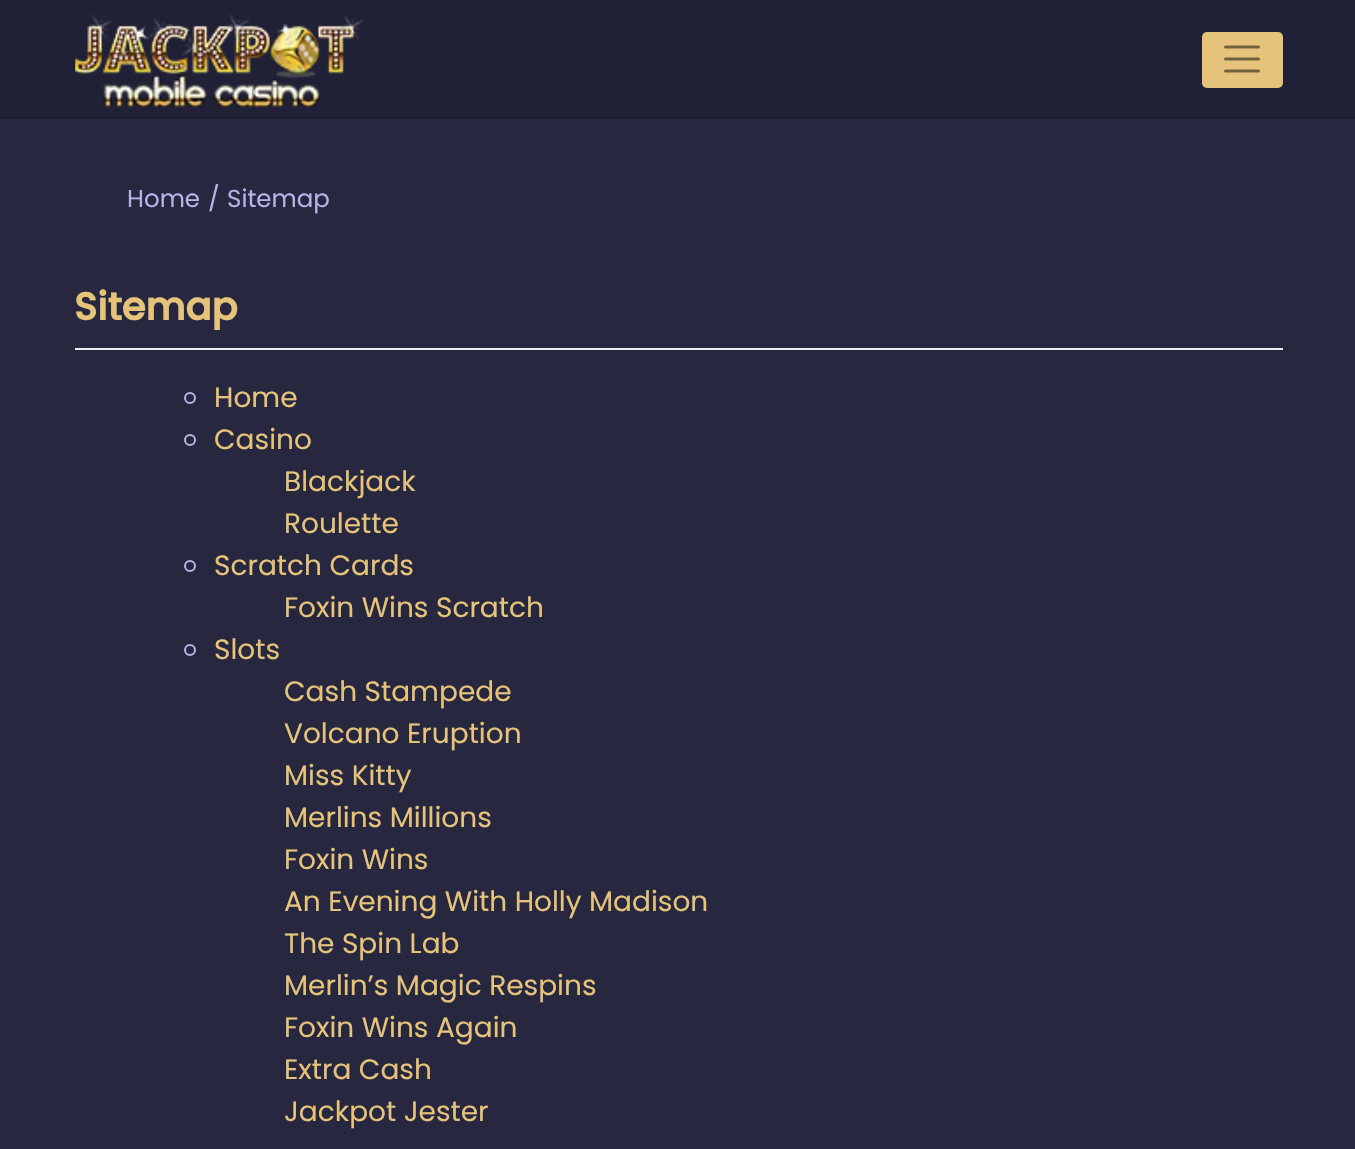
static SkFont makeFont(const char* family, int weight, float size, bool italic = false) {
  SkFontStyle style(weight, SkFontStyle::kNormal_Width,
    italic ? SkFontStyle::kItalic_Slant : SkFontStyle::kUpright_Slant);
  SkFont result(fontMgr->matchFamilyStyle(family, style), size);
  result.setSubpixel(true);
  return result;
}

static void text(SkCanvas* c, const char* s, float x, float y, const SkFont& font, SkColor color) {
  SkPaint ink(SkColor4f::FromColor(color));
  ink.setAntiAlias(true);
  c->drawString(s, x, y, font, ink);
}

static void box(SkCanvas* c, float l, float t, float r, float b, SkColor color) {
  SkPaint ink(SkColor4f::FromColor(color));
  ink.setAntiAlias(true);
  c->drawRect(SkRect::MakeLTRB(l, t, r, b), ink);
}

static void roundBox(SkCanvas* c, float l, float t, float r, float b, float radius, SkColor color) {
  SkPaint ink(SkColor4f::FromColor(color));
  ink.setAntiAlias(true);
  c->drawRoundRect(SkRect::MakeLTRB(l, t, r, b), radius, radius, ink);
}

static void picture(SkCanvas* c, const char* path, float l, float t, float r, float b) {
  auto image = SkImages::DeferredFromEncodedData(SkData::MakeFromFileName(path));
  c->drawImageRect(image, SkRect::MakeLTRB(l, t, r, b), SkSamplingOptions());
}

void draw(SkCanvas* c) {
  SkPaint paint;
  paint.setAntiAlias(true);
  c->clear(0xff27273f);
  box(c, 0, 0, 1355, 117, 0xff202136);
  box(c, 0, 117, 1355, 119, 0xff1d1e31);
  picture(c, "img_01.png", 75, 14, 364, 107);
  roundBox(c, 1202, 32, 1283, 88, 5, 0xffe5c37b);
  paint.setStyle(SkPaint::kStroke_Style);
  paint.setStrokeWidth(3);
  paint.setStrokeCap(SkPaint::kRound_Cap);
  paint.setColor(0xff73623e);
  c->drawPath(SkPathBuilder().moveTo(1225.5f, 47).lineTo(1258.5f, 47).moveTo(1225.5f, 59).lineTo(1258.5f, 59).moveTo(1225.5f, 71).lineTo(1258.5f, 71).detach(), paint);
  SkFont face1 = makeFont("Poppins", 400, 24.5f);
  text(c, "Home", 127, 207, face1, 0xffb4b4e6);
  text(c, "/", 208, 207, face1, 0xffb4b4e6);
  text(c, "Sitemap", 227, 207, face1, 0xffb4b4e6);
  box(c, 75, 348, 1283, 350, 0xffeaecef);
  SkFont face2 = makeFont("Poppins", 700, 38.5f);
  text(c, "Sitemap", 74, 320, face2, 0xffe5c37b);
  paint.setStrokeWidth(2);
  paint.setStrokeCap(SkPaint::kButt_Cap);
  paint.setColor(0xffb4b4e6);
  c->drawCircle(190, 398, 5, paint);
  SkFont face3 = makeFont("Poppins", 400, 28);
  text(c, "Home", 214, 407, face3, 0xffe5c37b);
  c->drawCircle(190, 440, 5, paint);
  text(c, "Casino", 214, 449, face3, 0xffe5c37b);
  text(c, "Blackjack", 284, 491, face3, 0xffe5c37b);
  text(c, "Roulette", 284, 533, face3, 0xffe5c37b);
  c->drawCircle(190, 566, 5, paint);
  text(c, "Scratch Cards", 214, 575, face3, 0xffe5c37b);
  text(c, "Foxin Wins Scratch", 284, 617, face3, 0xffe5c37b);
  c->drawCircle(190, 650, 5, paint);
  text(c, "Slots", 214, 659, face3, 0xffe5c37b);
  text(c, "Cash Stampede", 284, 701, face3, 0xffe5c37b);
  text(c, "Volcano Eruption", 284, 743, face3, 0xffe5c37b);
  text(c, "Miss Kitty", 284, 785, face3, 0xffe5c37b);
  text(c, "Merlins Millions", 284, 827, face3, 0xffe5c37b);
  text(c, "Foxin Wins", 284, 869, face3, 0xffe5c37b);
  text(c, "An Evening With Holly Madison", 284, 911, face3, 0xffe5c37b);
  text(c, "The Spin Lab", 284, 953, face3, 0xffe5c37b);
  text(c, "Merlin’s Magic Respins", 284, 995, face3, 0xffe5c37b);
  text(c, "Foxin Wins Again", 284, 1037, face3, 0xffe5c37b);
  text(c, "Extra Cash", 284, 1079, face3, 0xffe5c37b);
  text(c, "Jackpot Jester", 284, 1121, face3, 0xffe5c37b);
}
